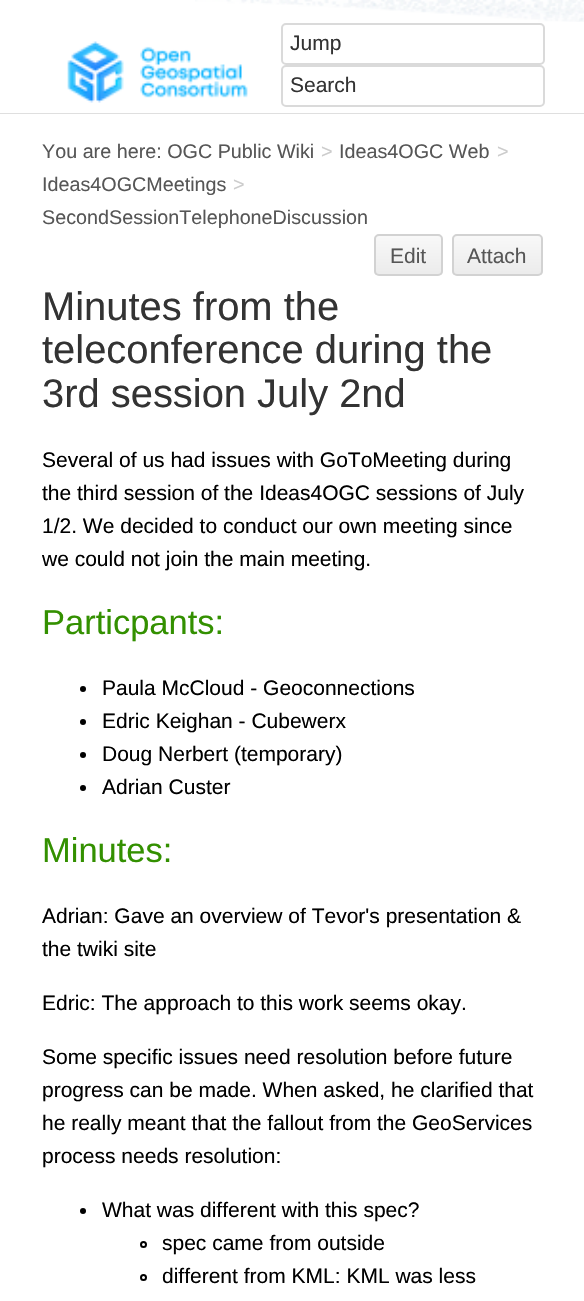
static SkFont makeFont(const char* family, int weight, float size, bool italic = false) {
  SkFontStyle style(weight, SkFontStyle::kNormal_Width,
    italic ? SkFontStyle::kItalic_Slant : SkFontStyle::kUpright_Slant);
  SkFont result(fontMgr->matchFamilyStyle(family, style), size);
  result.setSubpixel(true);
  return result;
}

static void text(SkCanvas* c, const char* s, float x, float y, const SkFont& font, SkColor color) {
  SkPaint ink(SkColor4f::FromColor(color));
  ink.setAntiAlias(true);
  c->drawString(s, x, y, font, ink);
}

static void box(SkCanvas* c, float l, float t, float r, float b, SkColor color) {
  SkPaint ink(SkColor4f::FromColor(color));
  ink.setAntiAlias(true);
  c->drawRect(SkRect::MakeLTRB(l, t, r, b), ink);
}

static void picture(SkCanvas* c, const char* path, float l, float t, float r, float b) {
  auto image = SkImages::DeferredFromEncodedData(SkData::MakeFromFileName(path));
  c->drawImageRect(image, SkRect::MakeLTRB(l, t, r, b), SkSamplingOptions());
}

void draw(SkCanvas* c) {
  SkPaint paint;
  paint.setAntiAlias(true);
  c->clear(0xffdfdfdf);
  box(c, 0, 0, 584, 113, 0xffffffff);
  picture(c, "img_01.png", 195, 0, 584, 22);
  picture(c, "img_02.png", 67, 41, 248, 103);
  paint.setStyle(SkPaint::kStroke_Style);
  paint.setStrokeWidth(2);
  paint.setColor(0xffdadada);
  c->drawRoundRect(SkRect::MakeLTRB(282, 24, 544, 64), 4, 4, paint);
  SkFont face1 = makeFont("Liberation Sans", 400, 21);
  text(c, "Jump", 290, 50, face1, 0xff333333);
  c->drawRoundRect(SkRect::MakeLTRB(282, 66, 544, 106), 4, 4, paint);
  text(c, "Search", 290, 92, face1, 0xff333333);
  box(c, 0, 114, 584, 1301, 0xffffffff);
  SkFont face2 = makeFont("Liberation Sans", 400, 19.75f);
  text(c, "You are here: OGC Public Wiki", 42, 158, face2, 0xff565656);
  text(c, ">", 321, 158, face2, 0xffcccccc);
  text(c, "Ideas4OGC Web", 339, 158, face2, 0xff565656);
  text(c, ">", 497, 158, face2, 0xffcccccc);
  text(c, "Ideas4OGCMeetings", 42, 191, face2, 0xff565656);
  text(c, ">", 233, 191, face2, 0xffcccccc);
  text(c, "SecondSessionTelephoneDiscussion", 42, 224, face2, 0xff565656);
  c->save();
  c->clipPath(SkPathBuilder().moveTo(379, 234).lineTo(438, 234).cubicTo(441, 234, 443, 236, 443, 239).lineTo(443, 271).cubicTo(443, 274, 441, 276, 438, 276).lineTo(379, 276).cubicTo(376, 276, 374, 274, 374, 271).lineTo(374, 239).cubicTo(374, 236, 376, 234, 379, 234).close().detach(), true);
  paint.setStyle(SkPaint::kFill_Style);
  {
    const SkColor colors[] = {0xfff8f8f8, 0xffebebeb};
    const float stops[] = {0, 1};
    const SkPoint ends[] = {{408, 236}, {408, 275}};
    paint.setShader(SkGradientShader::MakeLinear(ends, colors, stops, 2, SkTileMode::kClamp));
    paint.setAlpha(255);
  }
  c->drawRect(SkRect::MakeLTRB(374, 236, 443, 275), paint);
  c->restore();
  paint.setStyle(SkPaint::kStroke_Style);
  paint.setShader(nullptr);
  paint.setColor(0xffd2d2d2);
  c->drawRoundRect(SkRect::MakeLTRB(375, 235, 442, 275), 4, 4, paint);
  text(c, "Edit", 390, 263, face1, 0xff565656);
  c->save();
  c->clipPath(SkPathBuilder().moveTo(457, 234).lineTo(538, 234).cubicTo(541, 234, 543, 236, 543, 239).lineTo(543, 271).cubicTo(543, 274, 541, 276, 538, 276).lineTo(457, 276).cubicTo(454, 276, 452, 274, 452, 271).lineTo(452, 239).cubicTo(452, 236, 454, 234, 457, 234).close().detach(), true);
  paint.setStyle(SkPaint::kFill_Style);
  {
    const SkColor colors[] = {0xfff8f8f8, 0xffebebeb};
    const float stops[] = {0, 1};
    const SkPoint ends[] = {{497, 236}, {497, 275}};
    paint.setShader(SkGradientShader::MakeLinear(ends, colors, stops, 2, SkTileMode::kClamp));
    paint.setAlpha(255);
  }
  c->drawRect(SkRect::MakeLTRB(452, 236, 543, 275), paint);
  c->restore();
  paint.setStyle(SkPaint::kStroke_Style);
  paint.setShader(nullptr);
  paint.setColor(0xffd2d2d2);
  c->drawRoundRect(SkRect::MakeLTRB(453, 235, 542, 275), 4, 4, paint);
  text(c, "Attach", 467, 263, face1, 0xff565656);
  SkFont face3 = makeFont("Liberation Sans", 400, 39.9f);
  text(c, "Minutes from the", 42, 320, face3, 0xff333333);
  text(c, "teleconference during the", 42, 363, face3, 0xff333333);
  text(c, "3rd session July 2nd", 42, 407, face3, 0xff333333);
  text(c, "Several of us had issues with GoToMeeting during", 42, 467, face1, 0xff000000);
  text(c, "the third session of the Ideas4OGC sessions of July", 42, 500, face1, 0xff000000);
  text(c, "1/2. We decided to conduct our own meeting since", 42, 533, face1, 0xff000000);
  text(c, "we could not join the main meeting.", 42, 566, face1, 0xff000000);
  SkFont face4 = makeFont("Liberation Sans", 400, 34.5f);
  text(c, "Particpants:", 42, 634, face4, 0xff339000);
  paint.setStyle(SkPaint::kFill_Style);
  paint.setColor(0xff000000);
  c->drawCircle(83, 689, 3, paint);
  text(c, "Paula McCloud - Geoconnections", 102, 695, face1, 0xff000000);
  c->drawCircle(83, 722, 3, paint);
  text(c, "Edric Keighan - Cubewerx", 102, 728, face1, 0xff000000);
  c->drawCircle(83, 755, 3, paint);
  text(c, "Doug Nerbert (temporary)", 102, 761, face1, 0xff000000);
  c->drawCircle(83, 788, 3, paint);
  text(c, "Adrian Custer", 102, 794, face1, 0xff000000);
  text(c, "Minutes:", 42, 862, face4, 0xff339000);
  text(c, "Adrian: Gave an overview of Tevor's presentation &", 42, 923, face1, 0xff000000);
  text(c, "the twiki site", 42, 956, face1, 0xff000000);
  text(c, "Edric: The approach to this work seems okay.", 42, 1010, face1, 0xff000000);
  text(c, "Some specific issues need resolution before future", 42, 1064, face1, 0xff000000);
  text(c, "progress can be made. When asked, he clarified that", 42, 1097, face1, 0xff000000);
  text(c, "he really meant that the fallout from the GeoServices", 42, 1130, face1, 0xff000000);
  text(c, "process needs resolution:", 42, 1163, face1, 0xff000000);
  c->drawCircle(83, 1211, 3, paint);
  text(c, "What was different with this spec?", 102, 1217, face1, 0xff000000);
  paint.setStyle(SkPaint::kStroke_Style);
  c->drawCircle(143.5f, 1244.5f, 2.5f, paint);
  text(c, "spec came from outside", 162, 1250, face1, 0xff000000);
  c->drawCircle(143.5f, 1277.5f, 2.5f, paint);
  text(c, "different from KML: KML was less", 162, 1283, face1, 0xff000000);
}
